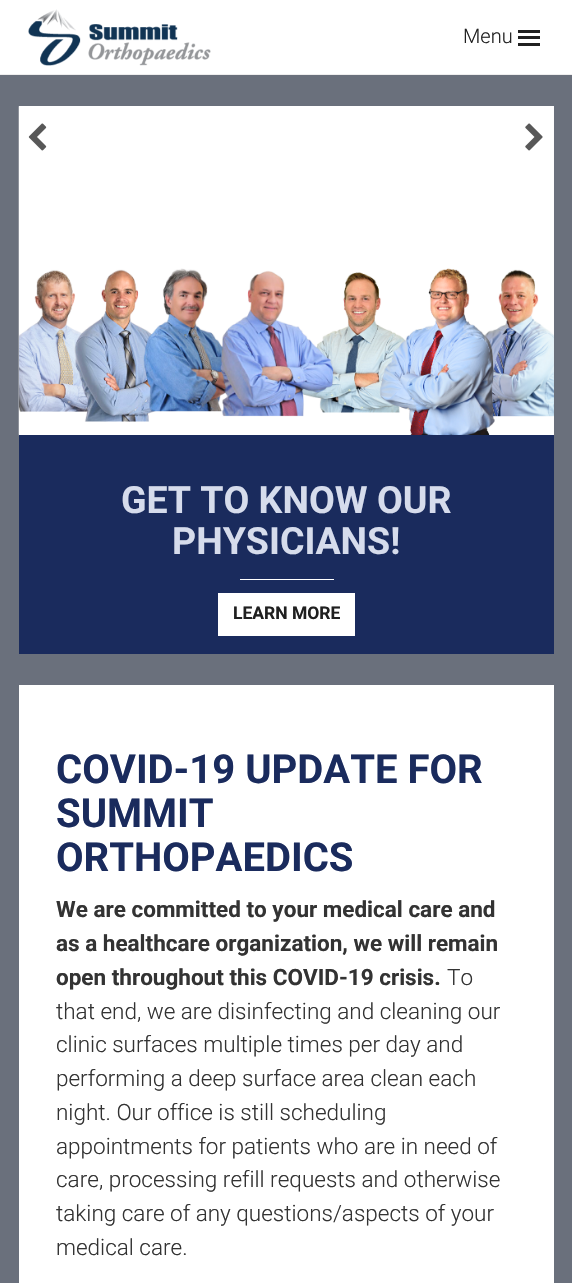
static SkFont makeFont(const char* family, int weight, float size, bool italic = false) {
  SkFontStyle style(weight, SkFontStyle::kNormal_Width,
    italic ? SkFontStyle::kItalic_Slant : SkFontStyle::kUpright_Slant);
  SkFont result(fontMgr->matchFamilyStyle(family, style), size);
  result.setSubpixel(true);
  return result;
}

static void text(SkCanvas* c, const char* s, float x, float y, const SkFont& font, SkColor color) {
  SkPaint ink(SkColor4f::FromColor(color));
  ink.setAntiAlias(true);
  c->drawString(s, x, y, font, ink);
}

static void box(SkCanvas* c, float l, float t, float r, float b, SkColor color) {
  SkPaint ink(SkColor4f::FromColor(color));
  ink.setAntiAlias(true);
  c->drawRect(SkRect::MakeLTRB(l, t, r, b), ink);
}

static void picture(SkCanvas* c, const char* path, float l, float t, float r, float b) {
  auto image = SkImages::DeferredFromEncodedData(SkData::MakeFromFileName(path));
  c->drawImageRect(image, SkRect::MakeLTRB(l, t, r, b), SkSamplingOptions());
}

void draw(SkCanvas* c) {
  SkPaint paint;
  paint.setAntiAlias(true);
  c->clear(0xff6a707c);
  box(c, 0, 0, 572, 74, 0xffffffff);
  box(c, 0, 74, 572, 75, 0xffeeeeee);
  picture(c, "img_01.png", 28, 9, 211, 66);
  SkFont face1 = makeFont("Roboto", 300, 20);
  text(c, "Menu", 463, 43, face1, 0xff202020);
  box(c, 518, 36, 540, 39, 0xff202020);
  box(c, 518, 30, 540, 33, 0xff202020);
  box(c, 518, 43, 540, 46, 0xff202020);
  picture(c, "img_04.png", 18, 106, 554, 436);
  picture(c, "img_05.png", 19, 106, 554, 435);
  picture(c, "img_02.png", 28, 123, 47, 151);
  picture(c, "img_03.png", 525, 123, 543, 151);
  box(c, 19, 435, 554, 654, 0xff1a2b5d);
  SkFont face2 = makeFont("Roboto", 700, 37.5f);
  text(c, "GET TO KNOW OUR", 121, 513, face2, 0xffd6dcec);
  text(c, "PHYSICIANS!", 172, 554, face2, 0xffd6dcec);
  box(c, 240, 579, 334, 580, 0xffffffff);
  box(c, 218, 593, 355, 636, 0xffffffff);
  SkFont face3 = makeFont("Roboto", 700, 17.5f);
  text(c, "LEARN MORE", 233, 619, face3, 0xff202020);
  box(c, 19, 685, 554, 1283, 0xffffffff);
  SkFont face4 = makeFont("Roboto", 700, 40);
  text(c, "COVID-19 UPDATE FOR", 56, 783, face4, 0xff1a2b5d);
  text(c, "SUMMIT", 56, 827, face4, 0xff1a2b5d);
  text(c, "ORTHOPAEDICS", 56, 871, face4, 0xff1a2b5d);
  SkFont face5 = makeFont("Roboto", 700, 22.5f);
  text(c, "We are committed to your medical care and", 56, 917, face5, 0xff333333);
  text(c, "as a healthcare organization, we will remain", 56, 951, face5, 0xff333333);
  text(c, "open throughout this COVID-19 crisis.", 56, 985, face5, 0xff333333);
  SkFont face6 = makeFont("Roboto", 300, 22.5f);
  text(c, "To", 447, 985, face6, 0xff333333);
  text(c, "that end, we are disinfecting and cleaning our", 56, 1019, face6, 0xff333333);
  text(c, "clinic surfaces multiple times per day and", 56, 1052, face6, 0xff333333);
  text(c, "performing a deep surface area clean each", 56, 1086, face6, 0xff333333);
  text(c, "night. Our office is still scheduling", 56, 1120, face6, 0xff333333);
  text(c, "appointments for patients who are in need of", 56, 1154, face6, 0xff333333);
  text(c, "care, processing refill requests and otherwise", 56, 1187, face6, 0xff333333);
  text(c, "taking care of any questions/aspects of your", 56, 1221, face6, 0xff333333);
  text(c, "medical care.", 56, 1255, face6, 0xff333333);
}
